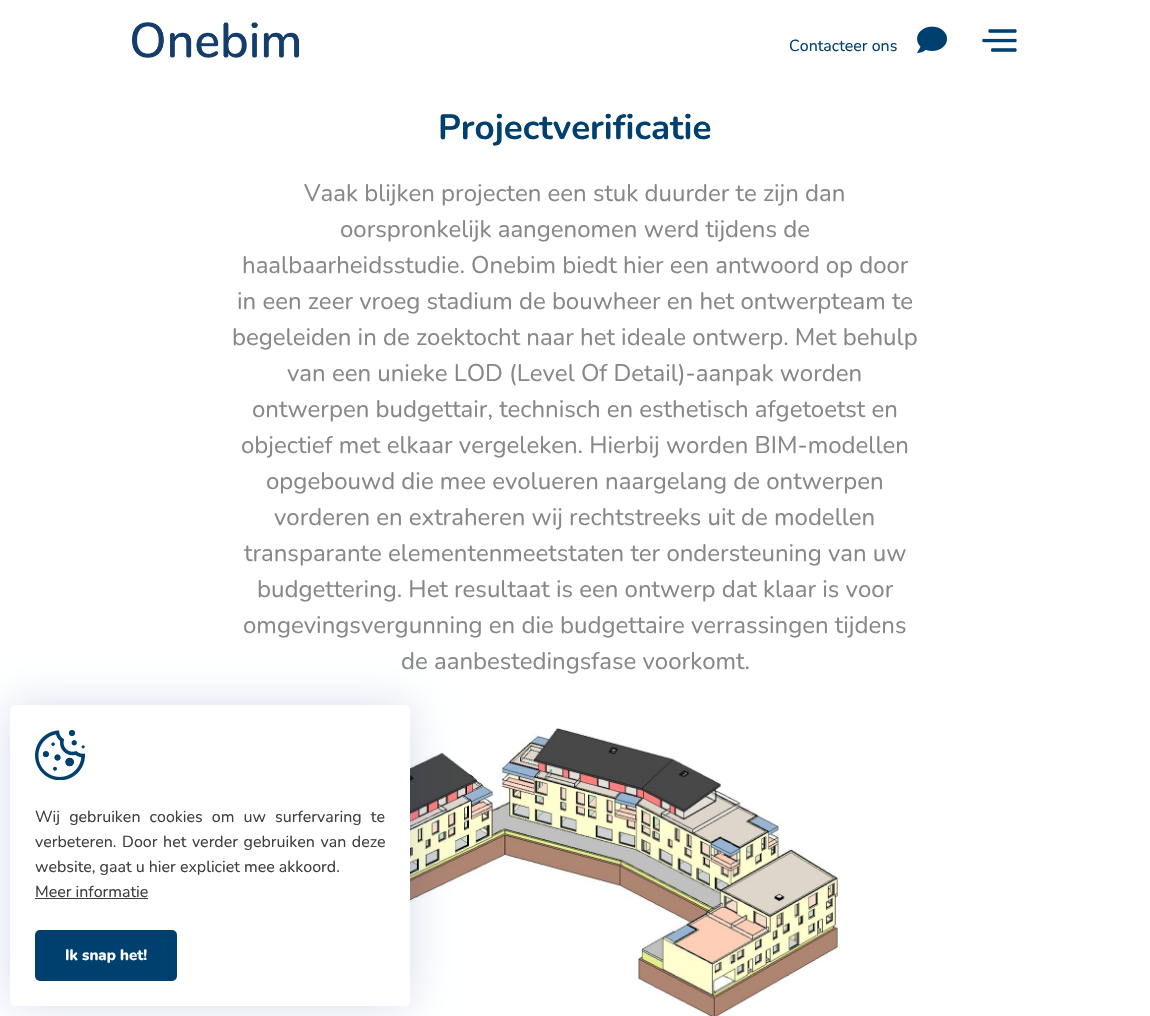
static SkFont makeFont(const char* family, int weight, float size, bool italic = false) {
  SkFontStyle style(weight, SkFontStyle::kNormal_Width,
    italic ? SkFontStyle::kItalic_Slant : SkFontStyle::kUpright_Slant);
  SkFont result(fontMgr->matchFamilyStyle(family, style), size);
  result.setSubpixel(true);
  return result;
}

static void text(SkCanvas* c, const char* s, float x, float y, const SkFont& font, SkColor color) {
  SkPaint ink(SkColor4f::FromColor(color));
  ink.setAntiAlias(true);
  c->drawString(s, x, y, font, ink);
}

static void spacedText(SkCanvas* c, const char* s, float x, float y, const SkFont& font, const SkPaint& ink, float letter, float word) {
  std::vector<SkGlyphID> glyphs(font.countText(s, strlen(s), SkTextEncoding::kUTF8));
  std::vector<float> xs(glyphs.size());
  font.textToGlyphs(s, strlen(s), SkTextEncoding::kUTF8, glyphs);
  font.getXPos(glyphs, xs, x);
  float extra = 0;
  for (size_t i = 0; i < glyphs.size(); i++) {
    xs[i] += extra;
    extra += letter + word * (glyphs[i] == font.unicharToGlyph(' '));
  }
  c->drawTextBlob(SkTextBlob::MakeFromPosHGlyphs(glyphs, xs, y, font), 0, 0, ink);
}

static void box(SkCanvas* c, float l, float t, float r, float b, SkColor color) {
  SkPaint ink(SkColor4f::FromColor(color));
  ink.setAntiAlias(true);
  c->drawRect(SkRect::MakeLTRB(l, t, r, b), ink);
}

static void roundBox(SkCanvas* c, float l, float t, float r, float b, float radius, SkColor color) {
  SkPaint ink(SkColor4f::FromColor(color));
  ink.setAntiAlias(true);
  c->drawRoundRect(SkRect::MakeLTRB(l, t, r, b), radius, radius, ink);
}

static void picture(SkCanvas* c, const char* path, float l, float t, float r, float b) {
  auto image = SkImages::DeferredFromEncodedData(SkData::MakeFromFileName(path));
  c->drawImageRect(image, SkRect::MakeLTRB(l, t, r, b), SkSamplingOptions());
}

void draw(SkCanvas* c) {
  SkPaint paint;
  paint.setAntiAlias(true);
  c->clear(0xffffffff);
  picture(c, "img_01.png", 132, 22, 300, 58);
  SkFont face1 = makeFont("Nunito", 400, 16);
  text(c, "Contacteer ons", 789, 51, face1, 0xff00406f);
  picture(c, "img_02.png", 917, 26, 948, 53);
  picture(c, "img_03.png", 982, 29, 1017, 52);
  SkFont face2 = makeFont("Nunito", 700, 35);
  text(c, "Projectverificatie", 438, 139, face2, 0xff00406f);
  SkFont face3 = makeFont("Nunito", 400, 24);
  text(c, "Vaak blijken projecten een stuk duurder te zijn dan", 304, 201, face3, 0xff878787);
  text(c, "oorspronkelijk aangenomen werd tijdens de", 340, 237, face3, 0xff878787);
  text(c, "haalbaarheidsstudie. Onebim biedt hier een antwoord op door", 242, 273, face3, 0xff878787);
  text(c, "in een zeer vroeg stadium de bouwheer en het ontwerpteam te", 237, 309, face3, 0xff878787);
  text(c, "begeleiden in de zoektocht naar het ideale ontwerp. Met behulp", 232, 345, face3, 0xff878787);
  text(c, "van een unieke LOD (Level Of Detail)-aanpak worden", 287, 381, face3, 0xff878787);
  text(c, "ontwerpen budgettair, technisch en esthetisch afgetoetst en", 252, 417, face3, 0xff878787);
  text(c, "objectief met elkaar vergeleken. Hierbij worden BIM-modellen", 241, 453, face3, 0xff878787);
  text(c, "opgebouwd die mee evolueren naargelang de ontwerpen", 266, 489, face3, 0xff878787);
  text(c, "vorderen en extraheren wij rechtstreeks uit de modellen", 274, 525, face3, 0xff878787);
  text(c, "transparante elementenmeetstaten ter ondersteuning van uw", 244, 561, face3, 0xff878787);
  text(c, "budgettering. Het resultaat is een ontwerp dat klaar is voor", 257, 597, face3, 0xff878787);
  text(c, "omgevingsvergunning en die budgettaire verrassingen tijdens", 243, 633, face3, 0xff878787);
  text(c, "de aanbestedingsfase voorkomt.", 401, 669, face3, 0xff878787);
  picture(c, "img_04.png", 310, 728, 838, 1016);
  paint.setColor(0x26001d93);
  paint.setMaskFilter(SkMaskFilter::MakeBlur(kNormal_SkBlurStyle, 22.5f));
  c->drawRoundRect(SkRect::MakeLTRB(10, 705, 410, 1006), 5, 5, paint);
  paint.setMaskFilter(nullptr);
  roundBox(c, 10, 705, 410, 1006, 5, 0xffffffff);
  picture(c, "img_05.png", 35, 730, 85, 780);
  paint.setColor(0xff3e3e3e);
  spacedText(c, "Wij gebruiken cookies om uw surfervaring te", 35, 822, face1, paint, 0, 5);
  spacedText(c, "verbeteren. Door het verder gebruiken van deze", 35, 847, face1, paint, 0, 1.5f);
  text(c, "website, gaat u hier expliciet mee akkoord.", 35, 872, face1, 0xff3e3e3e);
  text(c, "Meer informatie", 35, 897, face1, 0xff3e3e3e);
  box(c, 35, 898, 148, 899, 0xff3e3e3e);
  roundBox(c, 35, 930, 177, 981, 5, 0xff00406f);
  SkFont face4 = makeFont("Nunito", 800, 15);
  text(c, "Ik snap het!", 65, 960, face4, 0xffffffff);
}
